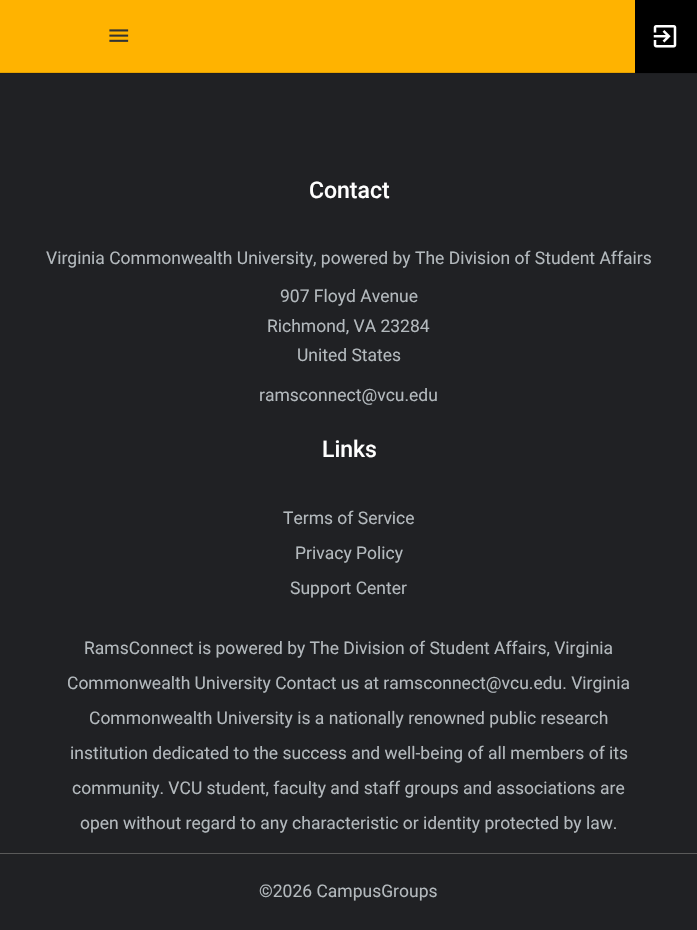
static SkFont makeFont(const char* family, int weight, float size, bool italic = false) {
  SkFontStyle style(weight, SkFontStyle::kNormal_Width,
    italic ? SkFontStyle::kItalic_Slant : SkFontStyle::kUpright_Slant);
  SkFont result(fontMgr->matchFamilyStyle(family, style), size);
  result.setSubpixel(true);
  return result;
}

static void text(SkCanvas* c, const char* s, float x, float y, const SkFont& font, SkColor color) {
  SkPaint ink(SkColor4f::FromColor(color));
  ink.setAntiAlias(true);
  c->drawString(s, x, y, font, ink);
}

static void box(SkCanvas* c, float l, float t, float r, float b, SkColor color) {
  SkPaint ink(SkColor4f::FromColor(color));
  ink.setAntiAlias(true);
  c->drawRect(SkRect::MakeLTRB(l, t, r, b), ink);
}

static void picture(SkCanvas* c, const char* path, float l, float t, float r, float b) {
  auto image = SkImages::DeferredFromEncodedData(SkData::MakeFromFileName(path));
  c->drawImageRect(image, SkRect::MakeLTRB(l, t, r, b), SkSamplingOptions());
}

void draw(SkCanvas* c) {
  SkPaint paint;
  paint.setAntiAlias(true);
  c->clear(0xff202124);
  box(c, 0, 0, 635, 73, 0xffffb300);
  paint.setColor(0x1a000000);
  c->drawPath(SkPathBuilder().moveTo(0, 72).lineTo(0, 74).lineTo(88, 74).lineTo(88, 1).lineTo(88, 72).close().detach(), paint);
  c->drawPath(SkPathBuilder().moveTo(88, 72).lineTo(88, 74).lineTo(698, 74).lineTo(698, 1).lineTo(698, 72).close().detach(), paint);
  picture(c, "img_01.png", 109, 29, 129, 42);
  box(c, 635, 0, 697, 73, 0xff000000);
  picture(c, "img_02.png", 653, 25, 677, 48);
  SkFont face1 = makeFont("Roboto", 500, 23);
  text(c, "Contact", 309, 198, face1, 0xffffffff);
  SkFont face2 = makeFont("Roboto", 400, 17.5f);
  text(c, "Virginia Commonwealth University, powered by The Division of Student Affairs", 46, 264, face2, 0xffb3b9bd);
  text(c, "907 Floyd Avenue", 280, 302, face2, 0xffb3b9bd);
  text(c, "Richmond, VA 23284", 267, 332, face2, 0xffb3b9bd);
  text(c, "United States", 297, 361, face2, 0xffb3b9bd);
  text(c, "ramsconnect@vcu.edu", 259, 401, face2, 0xffb3b9bd);
  text(c, "Links", 322, 457, face1, 0xffffffff);
  text(c, "Terms of Service", 283, 524, face2, 0xffb3b9bd);
  text(c, "Privacy Policy", 295, 559, face2, 0xffb3b9bd);
  text(c, "Support Center", 290, 594, face2, 0xffb3b9bd);
  text(c, "RamsConnect is powered by The Division of Student Affairs, Virginia", 84, 654, face2, 0xffb3b9bd);
  text(c, "Commonwealth University Contact us at ramsconnect@vcu.edu. Virginia", 67, 689, face2, 0xffb3b9bd);
  text(c, "Commonwealth University is a nationally renowned public research", 89, 724, face2, 0xffb3b9bd);
  text(c, "institution dedicated to the success and well-being of all members of its", 70, 759, face2, 0xffb3b9bd);
  text(c, "community. VCU student, faculty and staff groups and associations are", 72, 794, face2, 0xffb3b9bd);
  text(c, "open without regard to any characteristic or identity protected by law.", 80, 829, face2, 0xffb3b9bd);
  box(c, 0, 853, 697, 854, 0xff5a5a5a);
  text(c, "©2026 CampusGroups", 259, 897, face2, 0xffb3b9bd);
}
